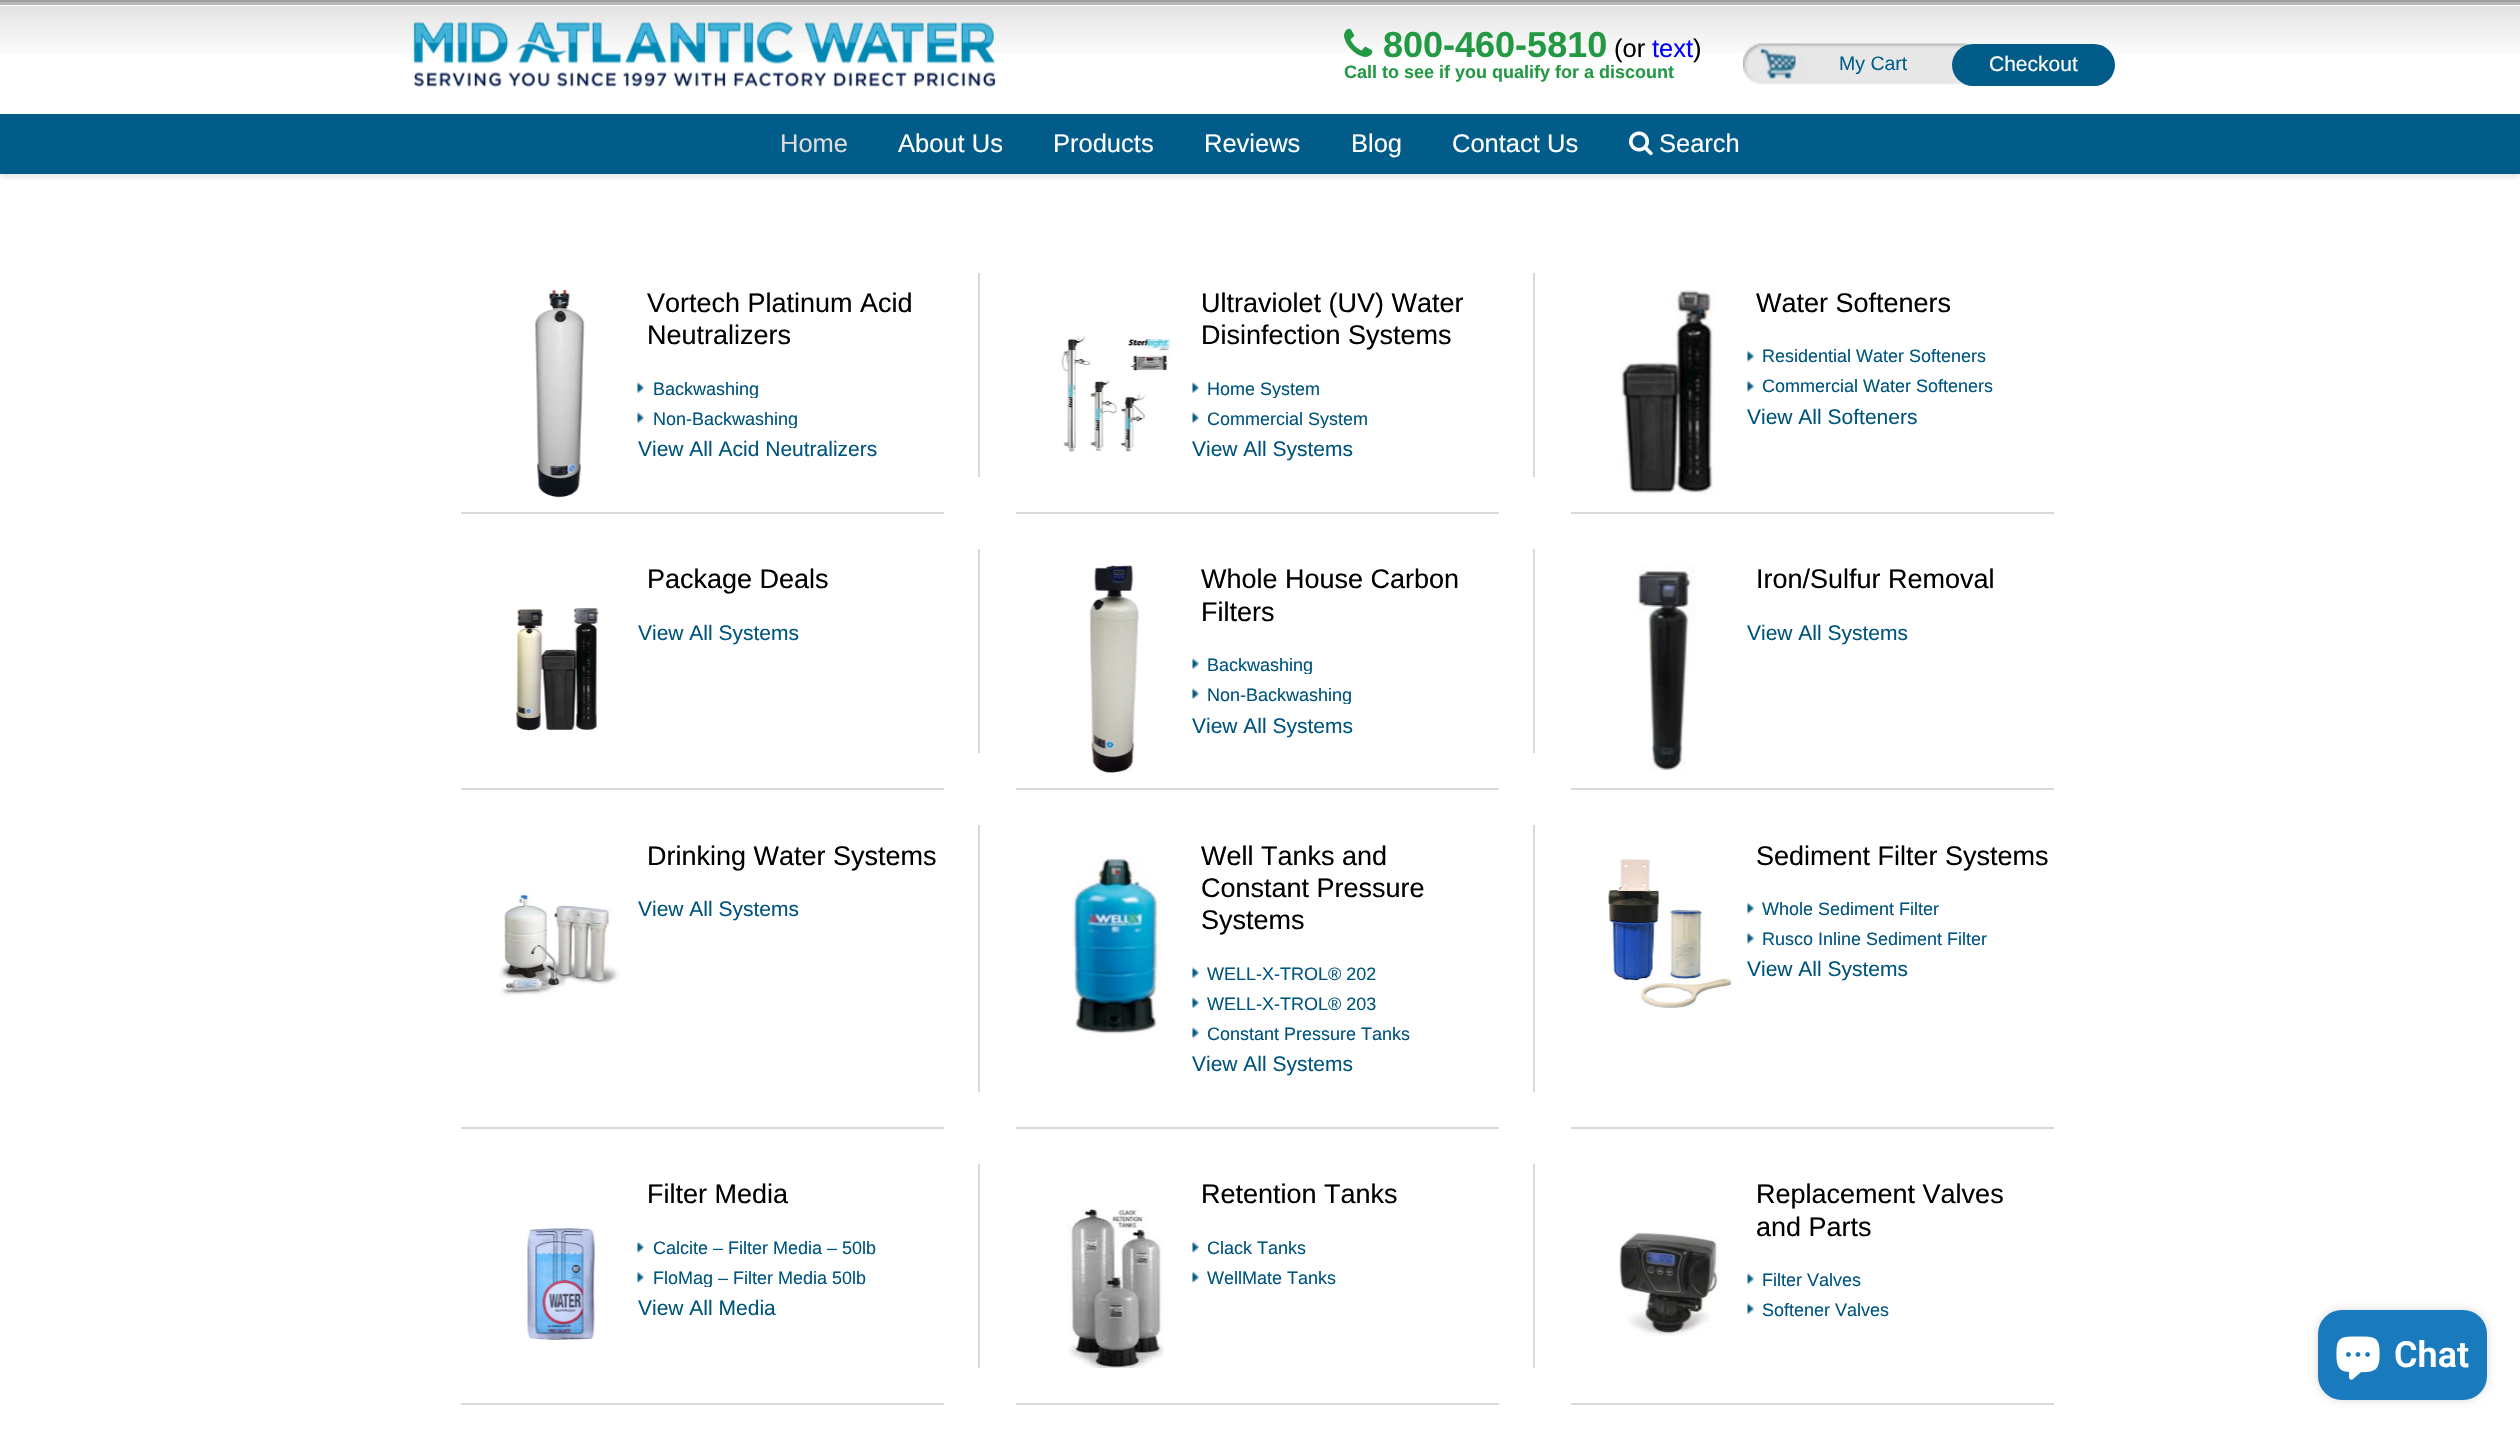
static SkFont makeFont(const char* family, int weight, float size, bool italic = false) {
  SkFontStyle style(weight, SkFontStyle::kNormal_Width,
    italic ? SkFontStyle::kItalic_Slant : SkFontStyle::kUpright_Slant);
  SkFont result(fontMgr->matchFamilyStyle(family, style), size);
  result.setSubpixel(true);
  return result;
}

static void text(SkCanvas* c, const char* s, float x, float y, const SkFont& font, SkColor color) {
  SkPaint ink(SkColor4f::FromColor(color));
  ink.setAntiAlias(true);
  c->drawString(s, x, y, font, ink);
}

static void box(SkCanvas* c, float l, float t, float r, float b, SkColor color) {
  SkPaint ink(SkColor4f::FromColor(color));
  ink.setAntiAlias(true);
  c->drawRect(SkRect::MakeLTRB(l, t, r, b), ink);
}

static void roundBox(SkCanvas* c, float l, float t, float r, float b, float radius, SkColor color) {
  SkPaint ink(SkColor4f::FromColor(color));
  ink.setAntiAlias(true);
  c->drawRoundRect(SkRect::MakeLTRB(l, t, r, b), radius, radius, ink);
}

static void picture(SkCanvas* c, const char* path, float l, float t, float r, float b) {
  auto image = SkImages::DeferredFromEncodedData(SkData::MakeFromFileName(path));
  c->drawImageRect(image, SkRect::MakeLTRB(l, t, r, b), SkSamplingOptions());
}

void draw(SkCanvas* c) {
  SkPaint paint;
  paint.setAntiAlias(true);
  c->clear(0xffffffff);
  c->save();
  c->clipRect(SkRect::MakeLTRB(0, 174, 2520, 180));
  paint.setColor(0x1a000000);
  paint.setMaskFilter(SkMaskFilter::MakeBlur(kNormal_SkBlurStyle, 3));
  c->drawRect(SkRect::MakeLTRB(0, 3, 2520, 177), paint);
  paint.setMaskFilter(nullptr);
  c->restore();
  box(c, 0, 2, 2520, 5, 0xffb7b7b7);
  box(c, 0, 0, 2520, 2, 0xffa0a0a0);
  picture(c, "img_01.png", 0, 6, 2520, 53);
  picture(c, "img_02.png", 413, 21, 996, 88);
  picture(c, "img_03.png", 1344, 28, 1373, 57);
  SkFont face1 = makeFont("Liberation Sans", 700, 36);
  text(c, "800-460-5810", 1383, 57, face1, 0xff249944);
  SkFont face2 = makeFont("Liberation Sans", 400, 25.5f);
  text(c, "(or", 1614, 57, face2, 0xff000000);
  text(c, "text", 1652, 57, face2, 0xff0000ff);
  text(c, ")", 1693, 57, face2, 0xff000000);
  SkFont face3 = makeFont("Liberation Sans", 700, 18);
  text(c, "Call to see if you qualify for a discount", 1344, 78, face3, 0xff249944);
  picture(c, "img_04.png", 1743, 43, 1972, 85);
  SkFont face4 = makeFont("Liberation Sans", 400, 19.5f);
  text(c, "My Cart", 1839, 70, face4, 0xff025f8c);
  roundBox(c, 1952, 44, 2115, 86, 21, 0xff015c89);
  SkFont face5 = makeFont("Liberation Sans", 400, 21);
  text(c, "Checkout", 1989, 71, face5, 0xffffffff);
  box(c, 0, 114, 2520, 174, 0xff015c89);
  text(c, "Home", 780, 152, face2, 0xffdddddd);
  text(c, "About Us", 898, 152, face2, 0xffffffff);
  text(c, "Products", 1053, 152, face2, 0xffffffff);
  text(c, "Reviews", 1204, 152, face2, 0xffffffff);
  text(c, "Blog", 1351, 152, face2, 0xffffffff);
  text(c, "Contact Us", 1452, 152, face2, 0xffffffff);
  picture(c, "img_05.png", 1629, 131, 1653, 156);
  text(c, "Search", 1659, 152, face2, 0xffffffff);
  box(c, 978, 273, 980, 477, 0xffd9d9d9);
  picture(c, "img_06.png", 534, 289, 585, 498);
  SkFont face6 = makeFont("Liberation Sans", 400, 27);
  text(c, "Vortech Platinum Acid", 647, 312, face6, 0xff000000);
  text(c, "Neutralizers", 647, 344, face6, 0xff000000);
  picture(c, "img_07.png", 637, 382, 644, 393);
  c->save();
  c->clipRect(SkRect::MakeLTRB(638, 375, 942, 398));
  SkFont face7 = makeFont("Liberation Sans", 400, 18);
  text(c, "Backwashing", 653, 395, face7, 0xff00557e);
  c->restore();
  picture(c, "img_07.png", 637, 412, 644, 423);
  c->save();
  c->clipRect(SkRect::MakeLTRB(638, 405, 942, 428));
  text(c, "Non-Backwashing", 653, 425, face7, 0xff00557e);
  c->restore();
  text(c, "View All Acid Neutralizers", 638, 456, face5, 0xff00557e);
  box(c, 461, 512, 944, 514, 0xffd9d9d9);
  box(c, 1533, 273, 1535, 477, 0xffd9d9d9);
  text(c, "Ultraviolet (UV) Water", 1201, 312, face6, 0xff000000);
  text(c, "Disinfection Systems", 1201, 344, face6, 0xff000000);
  picture(c, "img_08.png", 1061, 335, 1172, 452);
  picture(c, "img_07.png", 1192, 382, 1199, 393);
  c->save();
  c->clipRect(SkRect::MakeLTRB(1193, 375, 1497, 398));
  text(c, "Home System", 1207, 395, face7, 0xff00557e);
  c->restore();
  picture(c, "img_07.png", 1192, 412, 1199, 423);
  c->save();
  c->clipRect(SkRect::MakeLTRB(1193, 405, 1497, 428));
  text(c, "Commercial System", 1207, 425, face7, 0xff00557e);
  c->restore();
  text(c, "View All Systems", 1192, 456, face5, 0xff00557e);
  box(c, 1016, 512, 1499, 514, 0xffd9d9d9);
  picture(c, "img_09.png", 1619, 289, 1714, 494);
  text(c, "Water Softeners", 1756, 312, face6, 0xff000000);
  picture(c, "img_10.png", 1747, 350, 1754, 362);
  text(c, "Residential Water Softeners", 1762, 362, face7, 0xff00557e);
  picture(c, "img_10.png", 1747, 380, 1754, 392);
  text(c, "Commercial Water Softeners", 1762, 392, face7, 0xff00557e);
  text(c, "View All Softeners", 1747, 424, face5, 0xff00557e);
  box(c, 1571, 512, 2054, 514, 0xffd9d9d9);
  box(c, 978, 549, 980, 753, 0xffd9d9d9);
  text(c, "Package Deals", 647, 588, face6, 0xff000000);
  picture(c, "img_11.png", 516, 607, 599, 731);
  text(c, "View All Systems", 638, 640, face5, 0xff00557e);
  box(c, 461, 788, 944, 790, 0xffd9d9d9);
  box(c, 1533, 549, 1535, 753, 0xffd9d9d9);
  picture(c, "img_12.png", 1089, 565, 1139, 773);
  text(c, "Whole House Carbon", 1201, 588, face6, 0xff000000);
  text(c, "Filters", 1201, 621, face6, 0xff000000);
  picture(c, "img_07.png", 1192, 658, 1199, 669);
  c->save();
  c->clipRect(SkRect::MakeLTRB(1193, 651, 1497, 674));
  text(c, "Backwashing", 1207, 671, face7, 0xff00557e);
  c->restore();
  picture(c, "img_07.png", 1192, 688, 1199, 699);
  c->save();
  c->clipRect(SkRect::MakeLTRB(1193, 681, 1497, 704));
  text(c, "Non-Backwashing", 1207, 701, face7, 0xff00557e);
  c->restore();
  text(c, "View All Systems", 1192, 733, face5, 0xff00557e);
  box(c, 1016, 788, 1499, 790, 0xffd9d9d9);
  picture(c, "img_13.png", 1637, 565, 1697, 771);
  text(c, "Iron/Sulfur Removal", 1756, 588, face6, 0xff000000);
  text(c, "View All Systems", 1747, 640, face5, 0xff00557e);
  box(c, 1571, 788, 2054, 790, 0xffd9d9d9);
  box(c, 978, 825, 980, 1092, 0xffd9d9d9);
  text(c, "Drinking Water Systems", 647, 865, face6, 0xff000000);
  picture(c, "img_14.png", 499, 892, 622, 999);
  text(c, "View All Systems", 638, 916, face5, 0xff00557e);
  box(c, 461, 1127, 944, 1129, 0xffd9d9d9);
  box(c, 1533, 825, 1535, 1092, 0xffd9d9d9);
  picture(c, "img_15.png", 1072, 856, 1160, 1034);
  text(c, "Well Tanks and", 1201, 865, face6, 0xff000000);
  text(c, "Constant Pressure", 1201, 897, face6, 0xff000000);
  text(c, "Systems", 1201, 929, face6, 0xff000000);
  picture(c, "img_07.png", 1192, 967, 1199, 978);
  text(c, "WELL-X-TROL® 202", 1207, 980, face7, 0xff00557e);
  picture(c, "img_07.png", 1192, 997, 1199, 1008);
  text(c, "WELL-X-TROL® 203", 1207, 1010, face7, 0xff00557e);
  picture(c, "img_07.png", 1192, 1027, 1199, 1038);
  text(c, "Constant Pressure Tanks", 1207, 1040, face7, 0xff00557e);
  text(c, "View All Systems", 1192, 1071, face5, 0xff00557e);
  box(c, 1016, 1127, 1499, 1129, 0xffd9d9d9);
  picture(c, "img_16.png", 1608, 859, 1732, 1010);
  text(c, "Sediment Filter Systems", 1756, 865, face6, 0xff000000);
  picture(c, "img_10.png", 1747, 902, 1754, 914);
  text(c, "Whole Sediment Filter", 1762, 915, face7, 0xff00557e);
  picture(c, "img_10.png", 1747, 932, 1754, 944);
  text(c, "Rusco Inline Sediment Filter", 1762, 945, face7, 0xff00557e);
  text(c, "View All Systems", 1747, 976, face5, 0xff00557e);
  box(c, 1571, 1127, 2054, 1129, 0xffd9d9d9);
  box(c, 978, 1164, 980, 1368, 0xffd9d9d9);
  text(c, "Filter Media", 647, 1203, face6, 0xff000000);
  picture(c, "img_17.png", 527, 1227, 595, 1342);
  picture(c, "img_18.png", 637, 1241, 644, 1253);
  text(c, "Calcite – Filter Media – 50lb", 653, 1254, face7, 0xff00557e);
  picture(c, "img_18.png", 637, 1271, 644, 1283);
  c->save();
  c->clipRect(SkRect::MakeLTRB(638, 1265, 942, 1287));
  text(c, "FloMag – Filter Media 50lb", 653, 1284, face7, 0xff00557e);
  c->restore();
  text(c, "View All Media", 638, 1315, face5, 0xff00557e);
  box(c, 461, 1403, 944, 1405, 0xffd9d9d9);
  box(c, 1533, 1164, 1535, 1368, 0xffd9d9d9);
  text(c, "Retention Tanks", 1201, 1203, face6, 0xff000000);
  picture(c, "img_19.png", 1067, 1209, 1164, 1368);
  picture(c, "img_18.png", 1192, 1241, 1199, 1253);
  text(c, "Clack Tanks", 1207, 1254, face7, 0xff00557e);
  picture(c, "img_18.png", 1192, 1271, 1199, 1283);
  text(c, "WellMate Tanks", 1207, 1284, face7, 0xff00557e);
  box(c, 1016, 1403, 1499, 1405, 0xffd9d9d9);
  text(c, "Replacement Valves", 1756, 1203, face6, 0xff000000);
  text(c, "and Parts", 1756, 1236, face6, 0xff000000);
  picture(c, "img_20.png", 1619, 1232, 1720, 1336);
  picture(c, "img_21.png", 1747, 1273, 1754, 1284);
  text(c, "Filter Valves", 1762, 1286, face7, 0xff00557e);
  picture(c, "img_21.png", 1747, 1303, 1754, 1314);
  text(c, "Softener Valves", 1762, 1316, face7, 0xff00557e);
  box(c, 1571, 1403, 2054, 1405, 0xffd9d9d9);
  paint.setColor(0x26000000);
  paint.setMaskFilter(SkMaskFilter::MakeBlur(kNormal_SkBlurStyle, 4));
  c->drawRoundRect(SkRect::MakeLTRB(2318, 1310, 2487, 1400), 24, 24, paint);
  paint.setMaskFilter(nullptr);
  roundBox(c, 2318, 1310, 2487, 1400, 24, 0xff197bbd);
  picture(c, "img_22.png", 2336, 1336, 2380, 1380);
  SkFont face8 = makeFont("Roboto", 600, 36);
  text(c, "Chat", 2394, 1367, face8, 0xffffffff);
}
